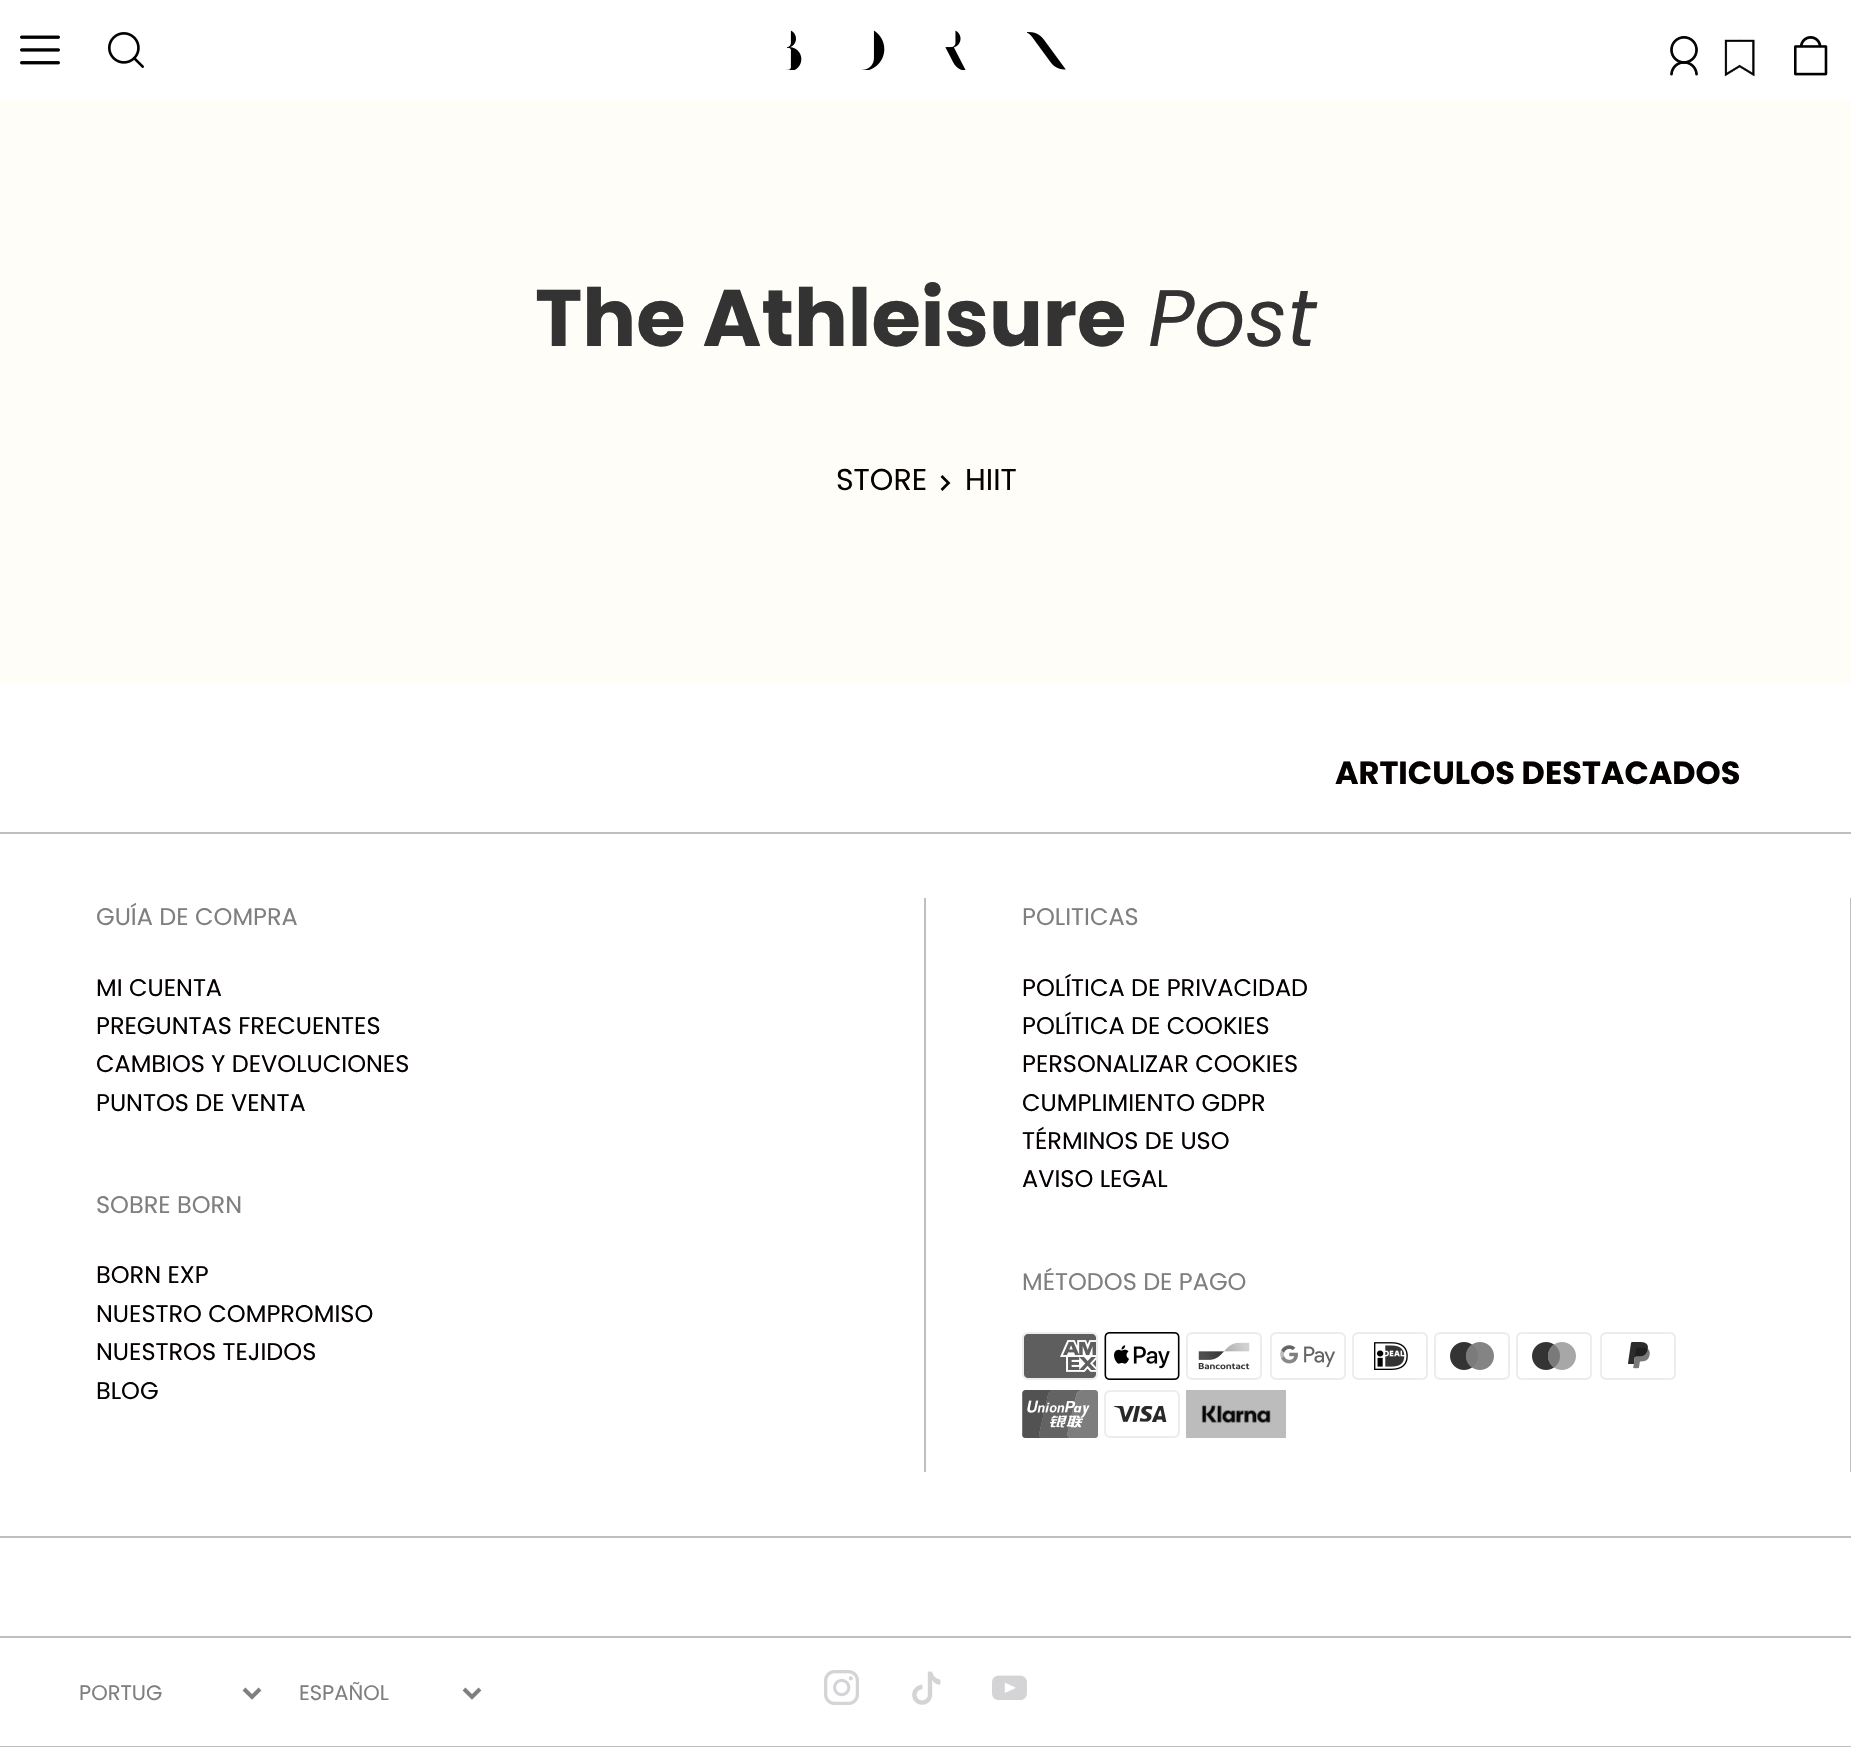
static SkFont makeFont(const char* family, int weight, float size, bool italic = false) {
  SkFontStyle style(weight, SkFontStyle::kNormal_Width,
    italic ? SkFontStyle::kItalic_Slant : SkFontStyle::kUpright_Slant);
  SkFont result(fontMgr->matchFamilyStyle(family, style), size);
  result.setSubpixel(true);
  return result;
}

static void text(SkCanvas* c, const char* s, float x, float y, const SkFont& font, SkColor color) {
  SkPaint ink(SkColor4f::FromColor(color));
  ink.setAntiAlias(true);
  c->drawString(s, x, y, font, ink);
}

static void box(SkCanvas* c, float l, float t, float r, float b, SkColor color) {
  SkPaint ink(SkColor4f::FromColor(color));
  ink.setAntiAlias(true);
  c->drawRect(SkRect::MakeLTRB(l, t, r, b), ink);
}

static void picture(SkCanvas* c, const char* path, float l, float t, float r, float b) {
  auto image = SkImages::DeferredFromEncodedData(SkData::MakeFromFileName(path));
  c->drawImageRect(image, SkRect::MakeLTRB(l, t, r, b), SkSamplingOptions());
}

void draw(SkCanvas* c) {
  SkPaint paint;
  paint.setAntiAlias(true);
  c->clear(0xffffffff);
  picture(c, "img_01.png", 20, 35, 60, 65);
  picture(c, "img_02.png", 108, 32, 144, 68);
  picture(c, "img_03.png", 786, 30, 1066, 70);
  picture(c, "img_04.png", 1670, 36, 1698, 76);
  picture(c, "img_05.png", 1724, 39, 1755, 77);
  picture(c, "img_06.png", 1794, 36, 1828, 76);
  box(c, 0, 100, 1851, 684, 0xfffffdf8);
  SkFont face1 = makeFont("Poppins", 700, 80);
  text(c, "The Athleisure", 535, 346, face1, 0xff333333);
  SkFont face2 = makeFont("Poppins", 400, 80, true);
  text(c, "Post", 1148, 346, face2, 0xff333333);
  SkFont face3 = makeFont("Poppins", 400, 30);
  text(c, "STORE", 836, 490, face3, 0xff050101);
  paint.setStyle(SkPaint::kStroke_Style);
  paint.setStrokeWidth(2.7f);
  paint.setColor(0xff050101);
  c->drawPath(SkPathBuilder().moveTo(941.5f, 476).lineTo(948.5f, 483).lineTo(941.5f, 490).detach(), paint);
  text(c, "HIIT", 965, 490, face3, 0xff050101);
  SkFont face4 = makeFont("Poppins", 700, 32);
  text(c, "ARTICULOS DESTACADOS", 1335, 784, face4, 0xff050101);
  box(c, 0, 832, 1851, 834, 0xffbfbfbf);
  box(c, 0, 1636, 1851, 1638, 0xffbfbfbf);
  box(c, 924, 898, 926, 1472, 0xffbfbfbf);
  SkFont face5 = makeFont("Poppins", 400, 24);
  text(c, "GUÍA DE COMPRA", 96, 925, face5, 0xff807f7f);
  text(c, "MI CUENTA", 96, 996, face5, 0xff050101);
  text(c, "PREGUNTAS FRECUENTES", 96, 1034, face5, 0xff050101);
  text(c, "CAMBIOS Y DEVOLUCIONES", 96, 1072, face5, 0xff050101);
  text(c, "PUNTOS DE VENTA", 96, 1111, face5, 0xff050101);
  text(c, "SOBRE BORN", 96, 1213, face5, 0xff807f7f);
  text(c, "BORN EXP", 96, 1283, face5, 0xff050101);
  text(c, "NUESTRO COMPROMISO", 96, 1322, face5, 0xff050101);
  text(c, "NUESTROS TEJIDOS", 96, 1360, face5, 0xff050101);
  text(c, "BLOG", 96, 1399, face5, 0xff050101);
  box(c, 1850, 898, 1851, 1472, 0xffbfbfbf);
  text(c, "POLITICAS", 1022, 925, face5, 0xff807f7f);
  text(c, "POLÍTICA DE PRIVACIDAD", 1022, 996, face5, 0xff050101);
  text(c, "POLÍTICA DE COOKIES", 1022, 1034, face5, 0xff050101);
  text(c, "PERSONALIZAR COOKIES", 1022, 1072, face5, 0xff050101);
  text(c, "CUMPLIMIENTO GDPR", 1022, 1111, face5, 0xff050101);
  text(c, "TÉRMINOS DE USO", 1022, 1149, face5, 0xff050101);
  text(c, "AVISO LEGAL", 1022, 1187, face5, 0xff050101);
  text(c, "MÉTODOS DE PAGO", 1022, 1290, face5, 0xff807f7f);
  picture(c, "img_07.png", 1022, 1332, 1098, 1380);
  picture(c, "img_08.png", 1104, 1332, 1180, 1380);
  picture(c, "img_09.png", 1186, 1332, 1262, 1380);
  picture(c, "img_10.png", 1270, 1332, 1346, 1380);
  picture(c, "img_11.png", 1352, 1332, 1428, 1380);
  picture(c, "img_12.png", 1434, 1332, 1510, 1380);
  picture(c, "img_13.png", 1516, 1332, 1592, 1380);
  picture(c, "img_14.png", 1600, 1332, 1676, 1380);
  picture(c, "img_15.png", 1022, 1390, 1098, 1438);
  picture(c, "img_16.png", 1104, 1390, 1180, 1438);
  picture(c, "img_17.png", 1186, 1390, 1286, 1438);
  box(c, 0, 1536, 1851, 1538, 0xffbfbfbf);
  paint.setStrokeWidth(4);
  paint.setColor(0xff807f7f);
  c->drawPath(SkPathBuilder().moveTo(244, 1689).lineTo(252, 1697).lineTo(260, 1689).detach(), paint);
  SkFont face6 = makeFont("Poppins", 400, 21);
  text(c, "PORTUG", 79, 1700, face6, 0xff807f7f);
  c->drawPath(SkPathBuilder().moveTo(464, 1689).lineTo(472, 1697).lineTo(480, 1689).detach(), paint);
  text(c, "ESPAÑOL", 299, 1700, face6, 0xff807f7f);
  picture(c, "img_18.png", 824, 1670, 859, 1705);
  picture(c, "img_19.png", 912, 1671, 941, 1705);
  picture(c, "img_20.png", 992, 1675, 1027, 1700);
  box(c, 0, 1746, 1851, 1747, 0xffbfbfbf);
}
